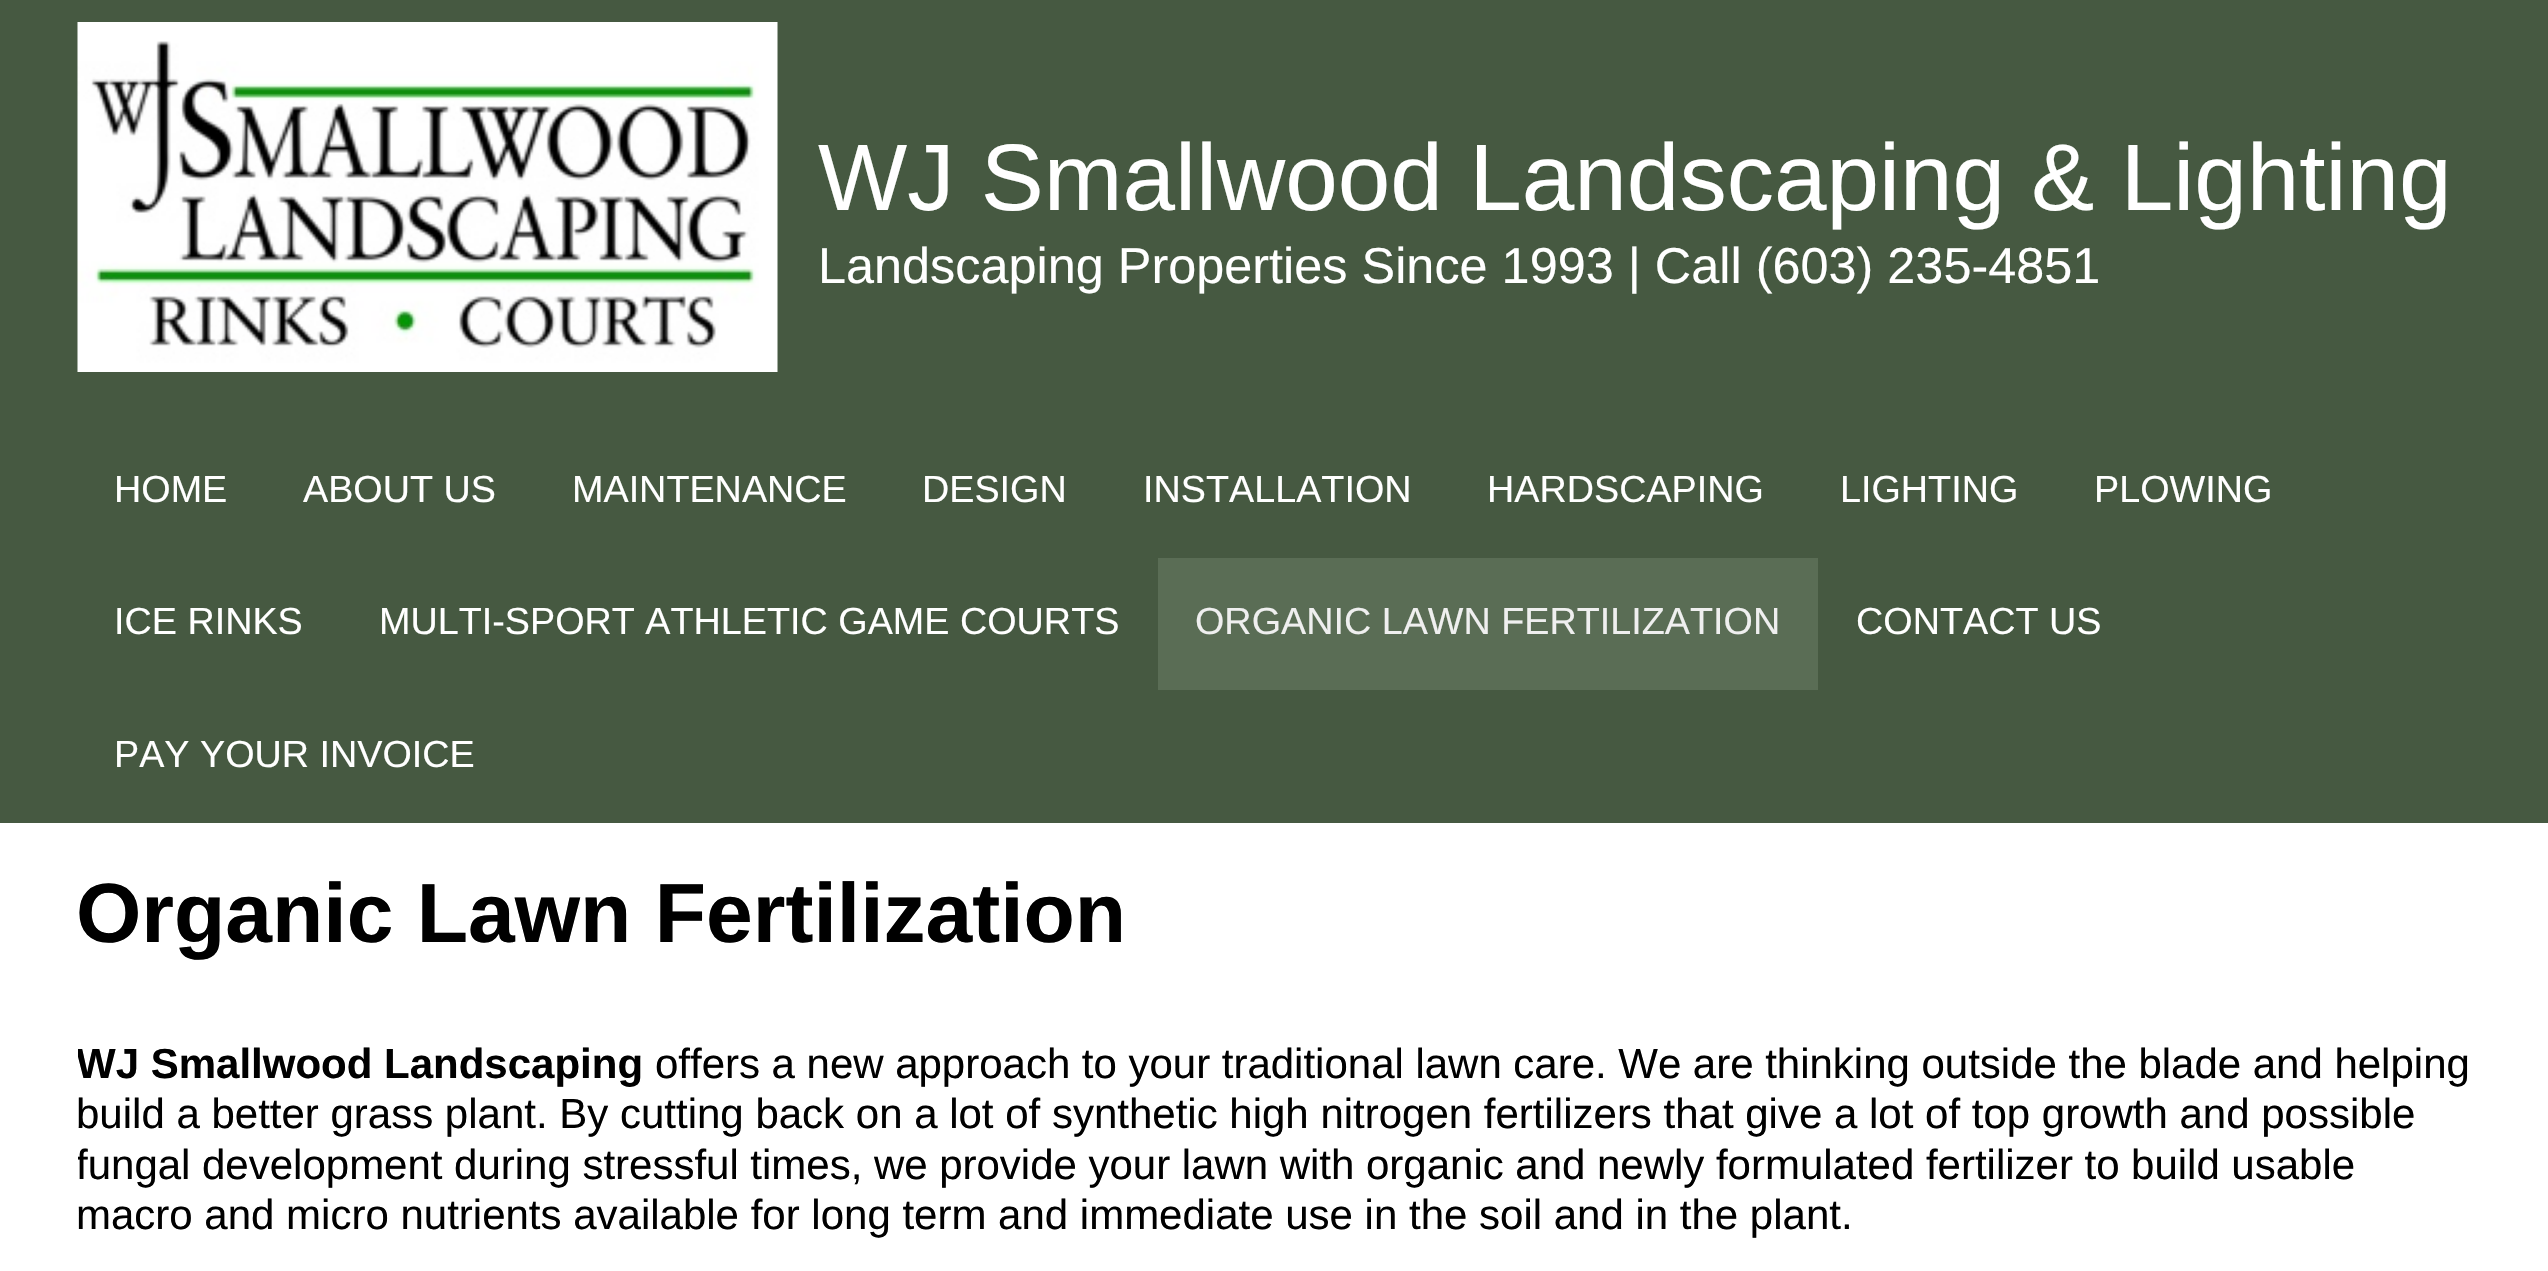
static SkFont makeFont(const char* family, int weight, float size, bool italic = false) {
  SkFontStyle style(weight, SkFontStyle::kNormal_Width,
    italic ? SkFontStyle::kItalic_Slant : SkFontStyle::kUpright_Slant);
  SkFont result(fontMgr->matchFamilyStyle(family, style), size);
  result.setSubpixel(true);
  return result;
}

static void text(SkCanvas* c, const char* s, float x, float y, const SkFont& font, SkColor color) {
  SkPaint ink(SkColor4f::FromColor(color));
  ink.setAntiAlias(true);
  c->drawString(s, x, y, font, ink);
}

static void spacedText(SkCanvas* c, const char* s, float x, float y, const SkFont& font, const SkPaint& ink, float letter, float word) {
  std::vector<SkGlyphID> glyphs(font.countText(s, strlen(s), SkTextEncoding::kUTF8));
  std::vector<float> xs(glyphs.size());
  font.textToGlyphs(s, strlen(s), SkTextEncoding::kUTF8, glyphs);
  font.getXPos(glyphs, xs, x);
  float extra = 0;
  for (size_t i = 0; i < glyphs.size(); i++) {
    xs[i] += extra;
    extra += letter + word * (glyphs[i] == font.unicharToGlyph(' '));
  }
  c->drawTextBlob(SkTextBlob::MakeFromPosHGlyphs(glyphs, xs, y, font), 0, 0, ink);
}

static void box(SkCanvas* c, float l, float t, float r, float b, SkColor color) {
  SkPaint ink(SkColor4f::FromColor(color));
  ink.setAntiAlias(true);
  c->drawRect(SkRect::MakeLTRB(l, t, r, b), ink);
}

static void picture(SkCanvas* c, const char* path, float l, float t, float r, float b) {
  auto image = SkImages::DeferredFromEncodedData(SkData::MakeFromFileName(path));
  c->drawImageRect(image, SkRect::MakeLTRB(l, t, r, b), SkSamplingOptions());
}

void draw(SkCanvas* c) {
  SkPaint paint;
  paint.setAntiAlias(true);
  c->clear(0xff465941);
  picture(c, "img_01.png", 77, 22, 778, 372);
  SkFont face1 = makeFont("Liberation Sans", 400, 94.5f);
  text(c, "WJ Smallwood Landscaping & Lighting", 818, 210, face1, 0xffffffff);
  SkFont face2 = makeFont("Liberation Sans", 400, 50.4f);
  text(c, "Landscaping Properties Since 1993 | Call (603) 235-4851", 818, 283, face2, 0xffffffff);
  SkFont face3 = makeFont("Liberation Sans", 400, 37.75f);
  text(c, "HOME", 114, 502, face3, 0xffffffff);
  text(c, "ABOUT US", 303, 502, face3, 0xffffffff);
  text(c, "MAINTENANCE", 572, 502, face3, 0xffffffff);
  text(c, "DESIGN", 922, 502, face3, 0xffffffff);
  text(c, "INSTALLATION", 1143, 502, face3, 0xffffffff);
  text(c, "HARDSCAPING", 1487, 502, face3, 0xffffffff);
  text(c, "LIGHTING", 1840, 502, face3, 0xffffffff);
  text(c, "PLOWING", 2094, 502, face3, 0xffffffff);
  text(c, "ICE RINKS", 114, 634, face3, 0xffffffff);
  text(c, "MULTI-SPORT ATHLETIC GAME COURTS", 379, 634, face3, 0xffffffff);
  box(c, 1158, 558, 1818, 690, 0xff5a6d55);
  text(c, "ORGANIC LAWN FERTILIZATION", 1195, 634, face3, 0xffefefef);
  text(c, "CONTACT US", 1856, 634, face3, 0xffffffff);
  text(c, "PAY YOUR INVOICE", 114, 767, face3, 0xffffffff);
  box(c, 0, 823, 2548, 1271, 0xffffffff);
  SkFont face4 = makeFont("Liberation Sans", 700, 84);
  text(c, "Organic Lawn Fertilization", 76, 942, face4, 0xff000000);
  c->save();
  c->clipRect(SkRect::MakeLTRB(78, 1040, 2473, 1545));
  SkFont face5 = makeFont("Liberation Sans", 700, 42);
  text(c, "WJ Smallwood Landscaping", 76, 1078, face5, 0xff000000);
  c->restore();
  SkFont face6 = makeFont("Liberation Sans", 400, 42);
  paint.setColor(0xff000000);
  spacedText(c, "offers a new approach to your traditional lawn care. We are thinking outside the blade and helping", 655, 1078, face6, paint, 0, -0.1f);
  text(c, "build a better grass plant. By cutting back on a lot of synthetic high nitrogen fertilizers that give a lot of top growth and possible", 76, 1128, face6, 0xff000000);
  c->save();
  c->clipRect(SkRect::MakeLTRB(78, 1040, 2473, 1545));
  spacedText(c, "fungal development during stressful times, we provide your lawn with organic and newly formulated fertilizer to build usable", 76, 1179, face6, paint, 0, -0.1f);
  c->restore();
  text(c, "macro and micro nutrients available for long term and immediate use in the soil and in the plant.", 76, 1229, face6, 0xff000000);
}
